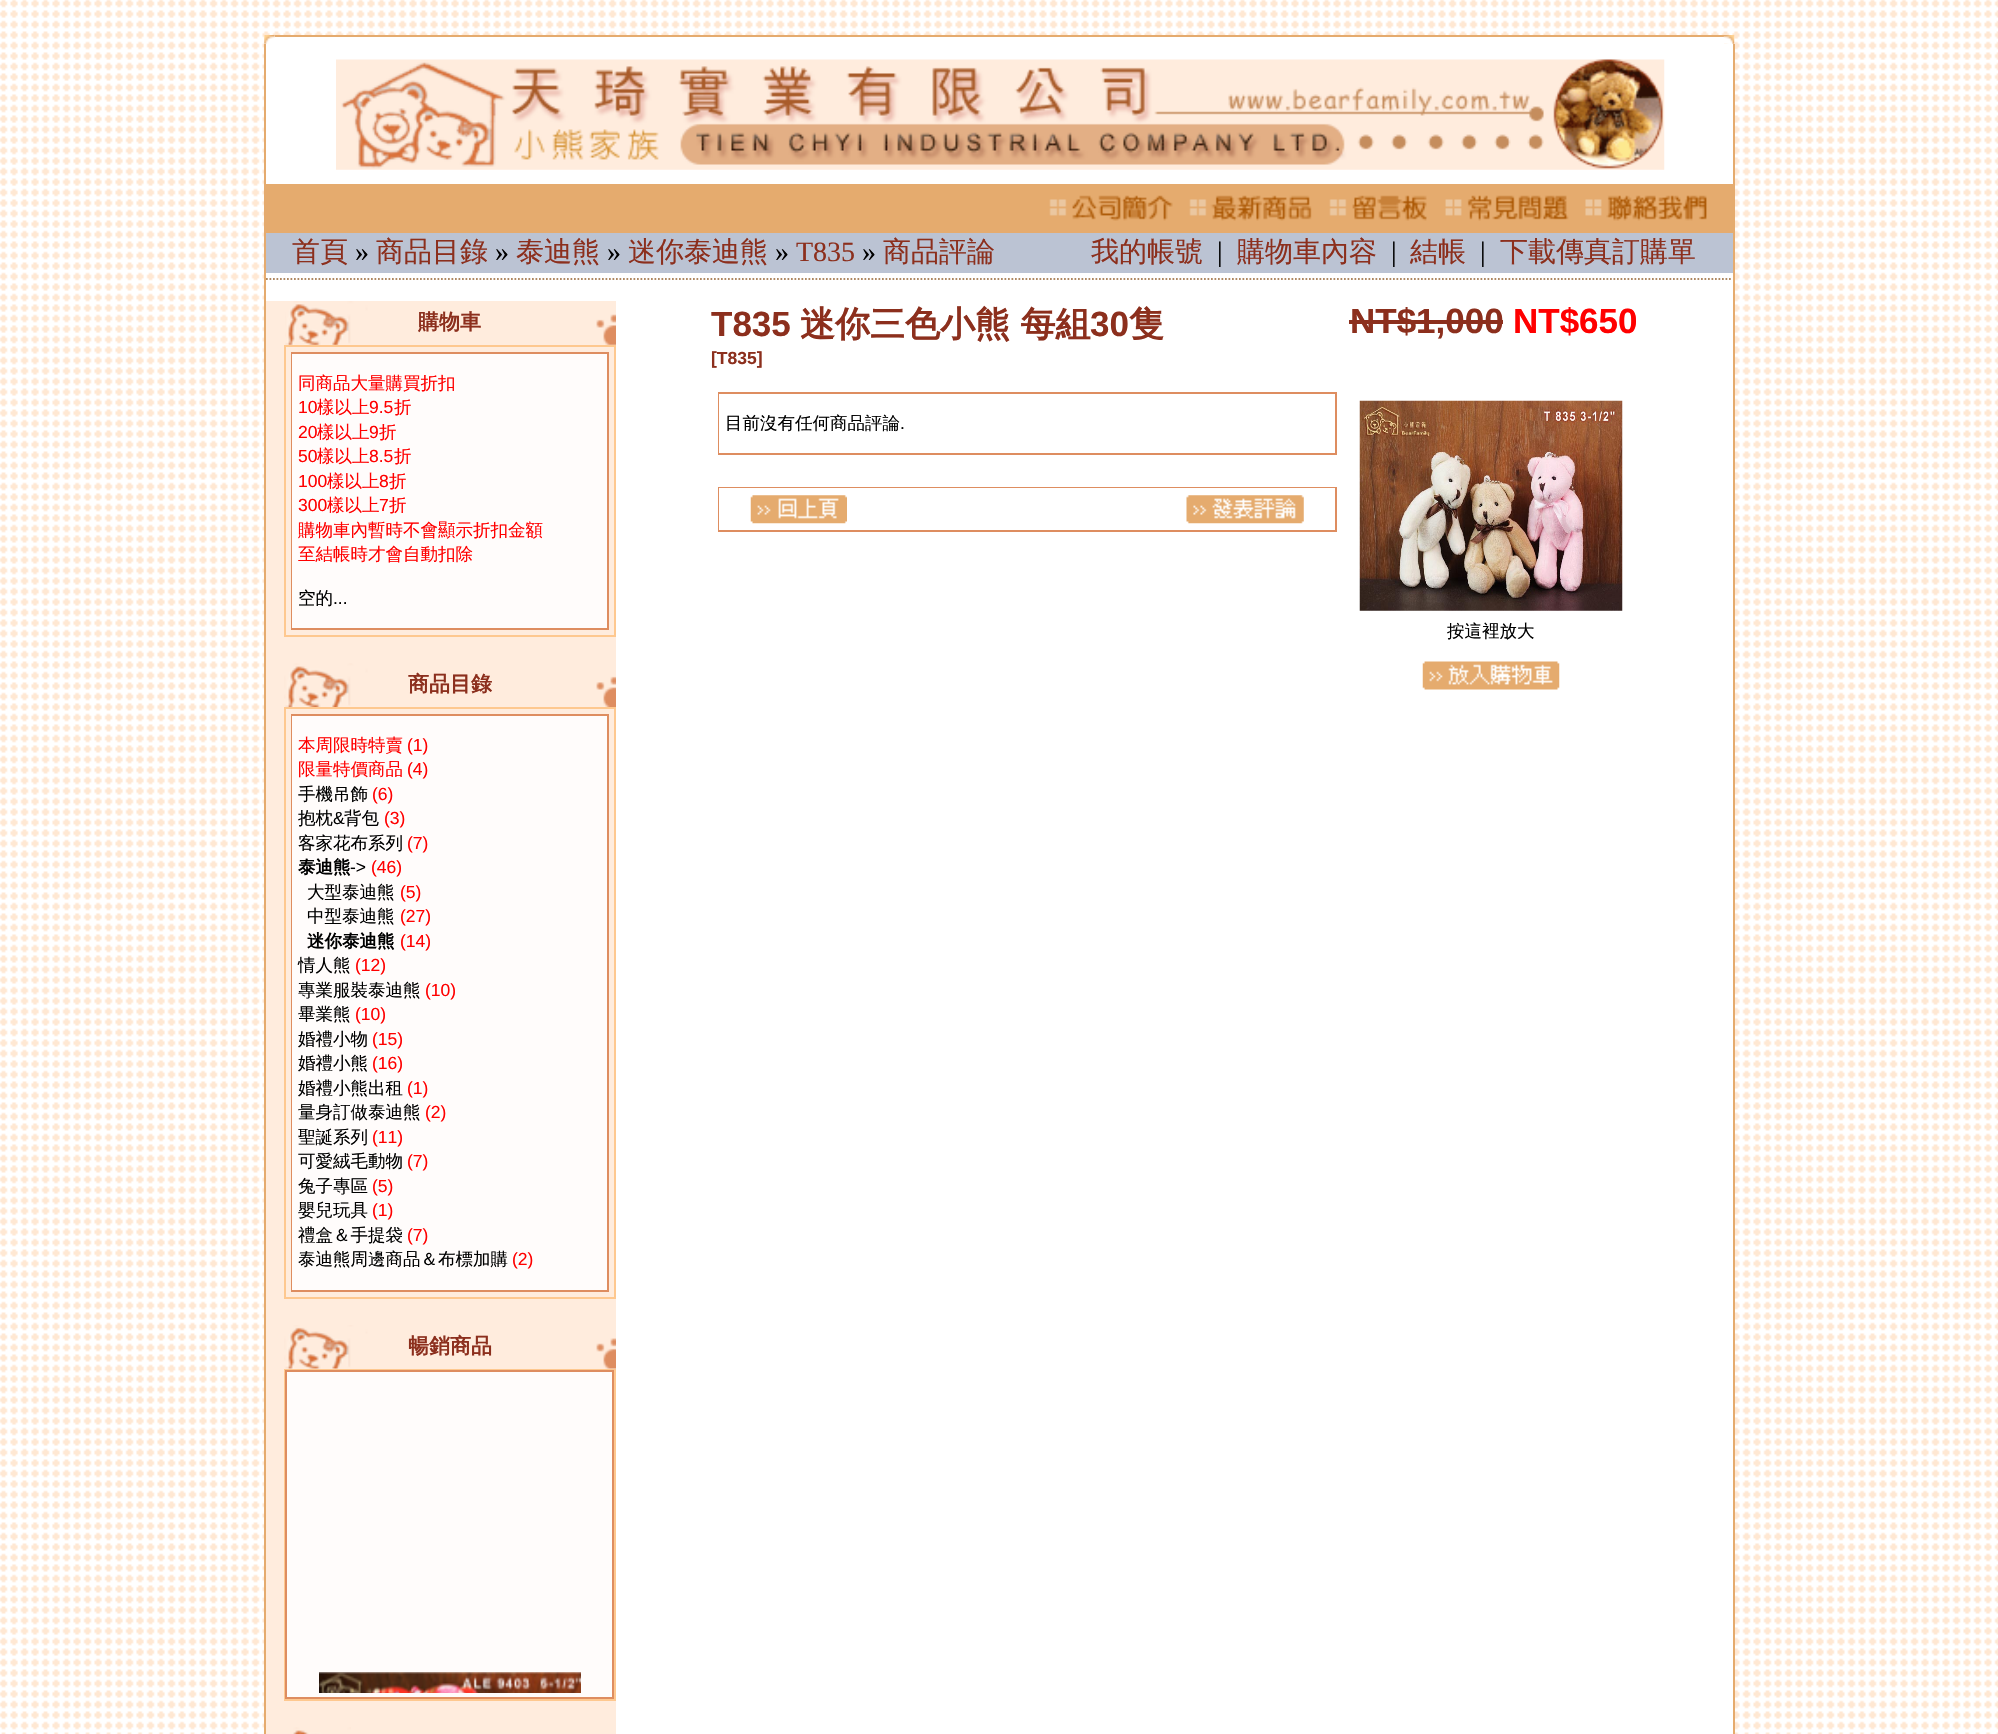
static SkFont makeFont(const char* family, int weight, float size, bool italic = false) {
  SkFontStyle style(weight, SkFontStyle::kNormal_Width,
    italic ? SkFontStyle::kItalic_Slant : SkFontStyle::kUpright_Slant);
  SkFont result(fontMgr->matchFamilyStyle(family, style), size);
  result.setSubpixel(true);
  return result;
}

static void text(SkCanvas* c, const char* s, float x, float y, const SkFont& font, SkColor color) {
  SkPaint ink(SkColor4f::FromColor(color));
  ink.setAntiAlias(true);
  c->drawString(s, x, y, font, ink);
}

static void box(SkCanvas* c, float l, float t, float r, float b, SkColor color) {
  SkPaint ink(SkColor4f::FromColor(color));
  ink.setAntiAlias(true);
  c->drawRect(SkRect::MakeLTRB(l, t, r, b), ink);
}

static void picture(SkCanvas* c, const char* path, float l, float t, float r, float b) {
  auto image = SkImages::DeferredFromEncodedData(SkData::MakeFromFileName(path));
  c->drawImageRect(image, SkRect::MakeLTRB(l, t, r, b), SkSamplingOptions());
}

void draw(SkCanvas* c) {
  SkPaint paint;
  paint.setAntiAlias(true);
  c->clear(0xffffffff);
  picture(c, "img_01.png", 0, 0, 1998, 1734);
  box(c, 264, 35, 275, 44, 0xffffffff);
  picture(c, "img_02.png", 264, 35, 275, 44);
  box(c, 275, 37, 1724, 44, 0xffffffff);
  box(c, 275, 35, 1724, 37, 0xffe5ab6e);
  picture(c, "img_03.png", 1723, 35, 1735, 44);
  box(c, 266, 44, 1733, 1734, 0xffffffff);
  box(c, 1733, 44, 1735, 1734, 0xffe5ab6e);
  box(c, 264, 44, 266, 1734, 0xffe5ab6e);
  picture(c, "img_04.png", 336, 59, 1665, 170);
  box(c, 266, 184, 1733, 233, 0xffe5ab6e);
  picture(c, "img_05.png", 1049, 195, 1173, 221);
  picture(c, "img_06.png", 1189, 195, 1312, 221);
  picture(c, "img_07.png", 1329, 195, 1427, 221);
  picture(c, "img_08.png", 1445, 195, 1569, 221);
  picture(c, "img_09.png", 1585, 195, 1707, 221);
  box(c, 266, 233, 1733, 273, 0xffbbc3d3);
  SkFont face1 = makeFont("WenQuanYi Zen Hei", 500, 28);
  text(c, "首頁", 292, 261, face1, 0xff8c2f1d);
  SkFont face2 = makeFont("Liberation Serif", 400, 28);
  text(c, "»", 355, 261, face2, 0xff000000);
  text(c, "商品目錄", 376, 261, face1, 0xff8c2f1d);
  text(c, "»", 495, 261, face2, 0xff000000);
  text(c, "泰迪熊", 516, 261, face1, 0xff8c2f1d);
  text(c, "»", 607, 261, face2, 0xff000000);
  text(c, "迷你泰迪熊", 628, 261, face1, 0xff8c2f1d);
  text(c, "»", 775, 261, face2, 0xff000000);
  text(c, "T835", 796, 261, face2, 0xff8c2f1d);
  text(c, "»", 862, 261, face2, 0xff000000);
  text(c, "商品評論", 883, 261, face1, 0xff8c2f1d);
  text(c, "我的帳號", 1091, 261, face1, 0xff8c2f1d);
  text(c, "|", 1217, 261, face2, 0xff000000);
  text(c, "購物車內容", 1237, 261, face1, 0xff8c2f1d);
  text(c, "|", 1391, 261, face2, 0xff000000);
  text(c, "結帳", 1410, 261, face1, 0xff8c2f1d);
  text(c, "|", 1480, 261, face2, 0xff000000);
  text(c, "下載傳真訂購單", 1500, 261, face1, 0xff8c2f1d);
  paint.setStyle(SkPaint::kStroke_Style);
  paint.setStrokeWidth(1.8f);
  paint.setColor(0xffaf8861);
  paint.setPathEffect(SkDashPathEffect::Make({{1.75f, 1.75f}}, 0));
  c->drawPath(SkPathBuilder().moveTo(266, 279).lineTo(1732.5f, 279).detach(), paint);
  paint.setPathEffect(nullptr);
  box(c, 266, 301, 616, 1734, 0xffffecdd);
  picture(c, "img_10.png", 285, 301, 616, 345);
  SkFont face3 = makeFont("WenQuanYi Zen Hei", 700, 21);
  text(c, "購物車", 418, 329, face3, 0xff8c2f1d);
  paint.setStrokeWidth(2);
  paint.setColor(0xfffec88f);
  c->drawRect(SkRect::MakeLTRB(285, 346, 615, 636), paint);
  box(c, 291, 352, 609, 630, 0xffde8d60);
  box(c, 292, 354, 607, 628, 0xfffffcfb);
  SkFont face4 = makeFont("WenQuanYi Zen Hei", 500, 17.5f);
  text(c, "同商品大量購買折扣", 298, 389, face4, 0xffff0000);
  SkFont face5 = makeFont("Liberation Sans", 400, 17.5f);
  text(c, "10", 298, 413, face5, 0xffff0000);
  text(c, "樣以上", 317, 413, face4, 0xffff0000);
  text(c, "9.5", 369, 413, face5, 0xffff0000);
  text(c, "折", 394, 413, face4, 0xffff0000);
  text(c, "20", 298, 438, face5, 0xffff0000);
  text(c, "樣以上", 317, 438, face4, 0xffff0000);
  text(c, "9", 369, 438, face5, 0xffff0000);
  text(c, "折", 379, 438, face4, 0xffff0000);
  text(c, "50", 298, 462, face5, 0xffff0000);
  text(c, "樣以上", 317, 462, face4, 0xffff0000);
  text(c, "8.5", 369, 462, face5, 0xffff0000);
  text(c, "折", 394, 462, face4, 0xffff0000);
  text(c, "100", 298, 487, face5, 0xffff0000);
  text(c, "樣以上", 327, 487, face4, 0xffff0000);
  text(c, "8", 379, 487, face5, 0xffff0000);
  text(c, "折", 389, 487, face4, 0xffff0000);
  text(c, "300", 298, 511, face5, 0xffff0000);
  text(c, "樣以上", 327, 511, face4, 0xffff0000);
  text(c, "7", 379, 511, face5, 0xffff0000);
  text(c, "折", 389, 511, face4, 0xffff0000);
  text(c, "購物車內暫時不會顯示折扣金額", 298, 536, face4, 0xffff0000);
  text(c, "至結帳時才會自動扣除", 298, 560, face4, 0xffff0000);
  text(c, "空的", 298, 604, face4, 0xff000000);
  text(c, "...", 333, 604, face5, 0xff000000);
  picture(c, "img_11.png", 284, 663, 616, 707);
  text(c, "商品目錄", 408, 691, face3, 0xff8c2f1d);
  c->drawRect(SkRect::MakeLTRB(285, 708, 615, 1298), paint);
  box(c, 291, 714, 609, 1292, 0xffde8d60);
  box(c, 292, 716, 607, 1290, 0xfffffcfb);
  text(c, "本周限時特賣", 298, 751, face4, 0xffff0000);
  text(c, "(1)", 407, 751, face5, 0xffff0000);
  text(c, "限量特價商品", 298, 775, face4, 0xffff0000);
  text(c, "(4)", 407, 775, face5, 0xffff0000);
  text(c, "手機吊飾", 298, 800, face4, 0xff000000);
  text(c, "(6)", 372, 800, face5, 0xffff0000);
  text(c, "抱枕", 298, 824, face4, 0xff000000);
  text(c, "&", 333, 824, face5, 0xff000000);
  text(c, "背包", 344, 824, face4, 0xff000000);
  text(c, "(3)", 384, 824, face5, 0xffff0000);
  text(c, "客家花布系列", 298, 849, face4, 0xff000000);
  text(c, "(7)", 407, 849, face5, 0xffff0000);
  SkFont face6 = makeFont("WenQuanYi Zen Hei", 700, 17.5f);
  text(c, "泰迪熊", 298, 873, face6, 0xff000000);
  text(c, "->", 350, 873, face5, 0xff000000);
  text(c, "(46)", 371, 873, face5, 0xffff0000);
  text(c, "大型泰迪熊", 307, 898, face4, 0xff000000);
  text(c, "(5)", 400, 898, face5, 0xffff0000);
  text(c, "中型泰迪熊", 307, 922, face4, 0xff000000);
  text(c, "(27)", 400, 922, face5, 0xffff0000);
  text(c, "迷你泰迪熊", 307, 947, face6, 0xff000000);
  text(c, "(14)", 400, 947, face5, 0xffff0000);
  text(c, "情人熊", 298, 971, face4, 0xff000000);
  text(c, "(12)", 355, 971, face5, 0xffff0000);
  text(c, "專業服裝泰迪熊", 298, 996, face4, 0xff000000);
  text(c, "(10)", 425, 996, face5, 0xffff0000);
  text(c, "畢業熊", 298, 1020, face4, 0xff000000);
  text(c, "(10)", 355, 1020, face5, 0xffff0000);
  text(c, "婚禮小物", 298, 1045, face4, 0xff000000);
  text(c, "(15)", 372, 1045, face5, 0xffff0000);
  text(c, "婚禮小熊", 298, 1069, face4, 0xff000000);
  text(c, "(16)", 372, 1069, face5, 0xffff0000);
  text(c, "婚禮小熊出租", 298, 1094, face4, 0xff000000);
  text(c, "(1)", 407, 1094, face5, 0xffff0000);
  text(c, "量身訂做泰迪熊", 298, 1118, face4, 0xff000000);
  text(c, "(2)", 425, 1118, face5, 0xffff0000);
  text(c, "聖誕系列", 298, 1143, face4, 0xff000000);
  text(c, "(11)", 372, 1143, face5, 0xffff0000);
  text(c, "可愛絨毛動物", 298, 1167, face4, 0xff000000);
  text(c, "(7)", 407, 1167, face5, 0xffff0000);
  text(c, "兔子專區", 298, 1192, face4, 0xff000000);
  text(c, "(5)", 372, 1192, face5, 0xffff0000);
  text(c, "嬰兒玩具", 298, 1216, face4, 0xff000000);
  text(c, "(1)", 372, 1216, face5, 0xffff0000);
  text(c, "禮盒＆手提袋", 298, 1241, face4, 0xff000000);
  text(c, "(7)", 407, 1241, face5, 0xffff0000);
  text(c, "泰迪熊周邊商品＆布標加購", 298, 1265, face4, 0xff000000);
  text(c, "(2)", 512, 1265, face5, 0xffff0000);
  picture(c, "img_12.png", 284, 1325, 616, 1369);
  text(c, "暢銷商品", 408, 1353, face3, 0xff8c2f1d);
  c->drawRect(SkRect::MakeLTRB(285, 1370, 615, 1700), paint);
  paint.setStyle(SkPaint::kFill_Style);
  paint.setColor(0xfffffcfb);
  c->drawRect(SkRect::MakeLTRB(286, 1371, 613, 1698), paint);
  paint.setStyle(SkPaint::kStroke_Style);
  paint.setColor(0xffde8d60);
  c->drawRect(SkRect::MakeLTRB(286, 1371, 613, 1698), paint);
  picture(c, "img_13.png", 319, 1672, 581, 1693);
  picture(c, "img_14.png", 293, 1727, 351, 1734);
  SkFont face7 = makeFont("Liberation Sans", 700, 35);
  text(c, "T835", 711, 336, face7, 0xff8c2f1d);
  SkFont face8 = makeFont("WenQuanYi Zen Hei", 700, 35);
  text(c, "迷你三色小熊 每組", 800, 336, face8, 0xff8c2f1d);
  text(c, "30", 1090, 336, face7, 0xff8c2f1d);
  text(c, "隻", 1129, 336, face8, 0xff8c2f1d);
  SkFont face9 = makeFont("Liberation Sans", 700, 17.5f);
  text(c, "[T835]", 711, 364, face9, 0xff8c2f1d);
  text(c, "NT$1,000", 1350, 333, face7, 0xff8c2f1d);
  box(c, 1349, 320, 1503, 324, 0xff8c2f1d);
  text(c, "NT$650", 1513, 333, face7, 0xffff0000);
  box(c, 718, 392, 1337, 455, 0xffde8d60);
  box(c, 719, 394, 1335, 453, 0xffffffff);
  text(c, "目前沒有任何商品評論", 725, 429, face4, 0xff000000);
  text(c, ".", 900, 429, face5, 0xff000000);
  box(c, 718, 487, 1337, 532, 0xffde8d60);
  box(c, 719, 488, 1335, 530, 0xffffffff);
  picture(c, "img_15.png", 750, 495, 847, 524);
  picture(c, "img_16.png", 1186, 495, 1304, 524);
  picture(c, "img_17.png", 1359, 400, 1623, 611);
  text(c, "按這裡放大", 1447, 637, face4, 0xff000000);
  picture(c, "img_18.png", 1422, 661, 1560, 690);
}
